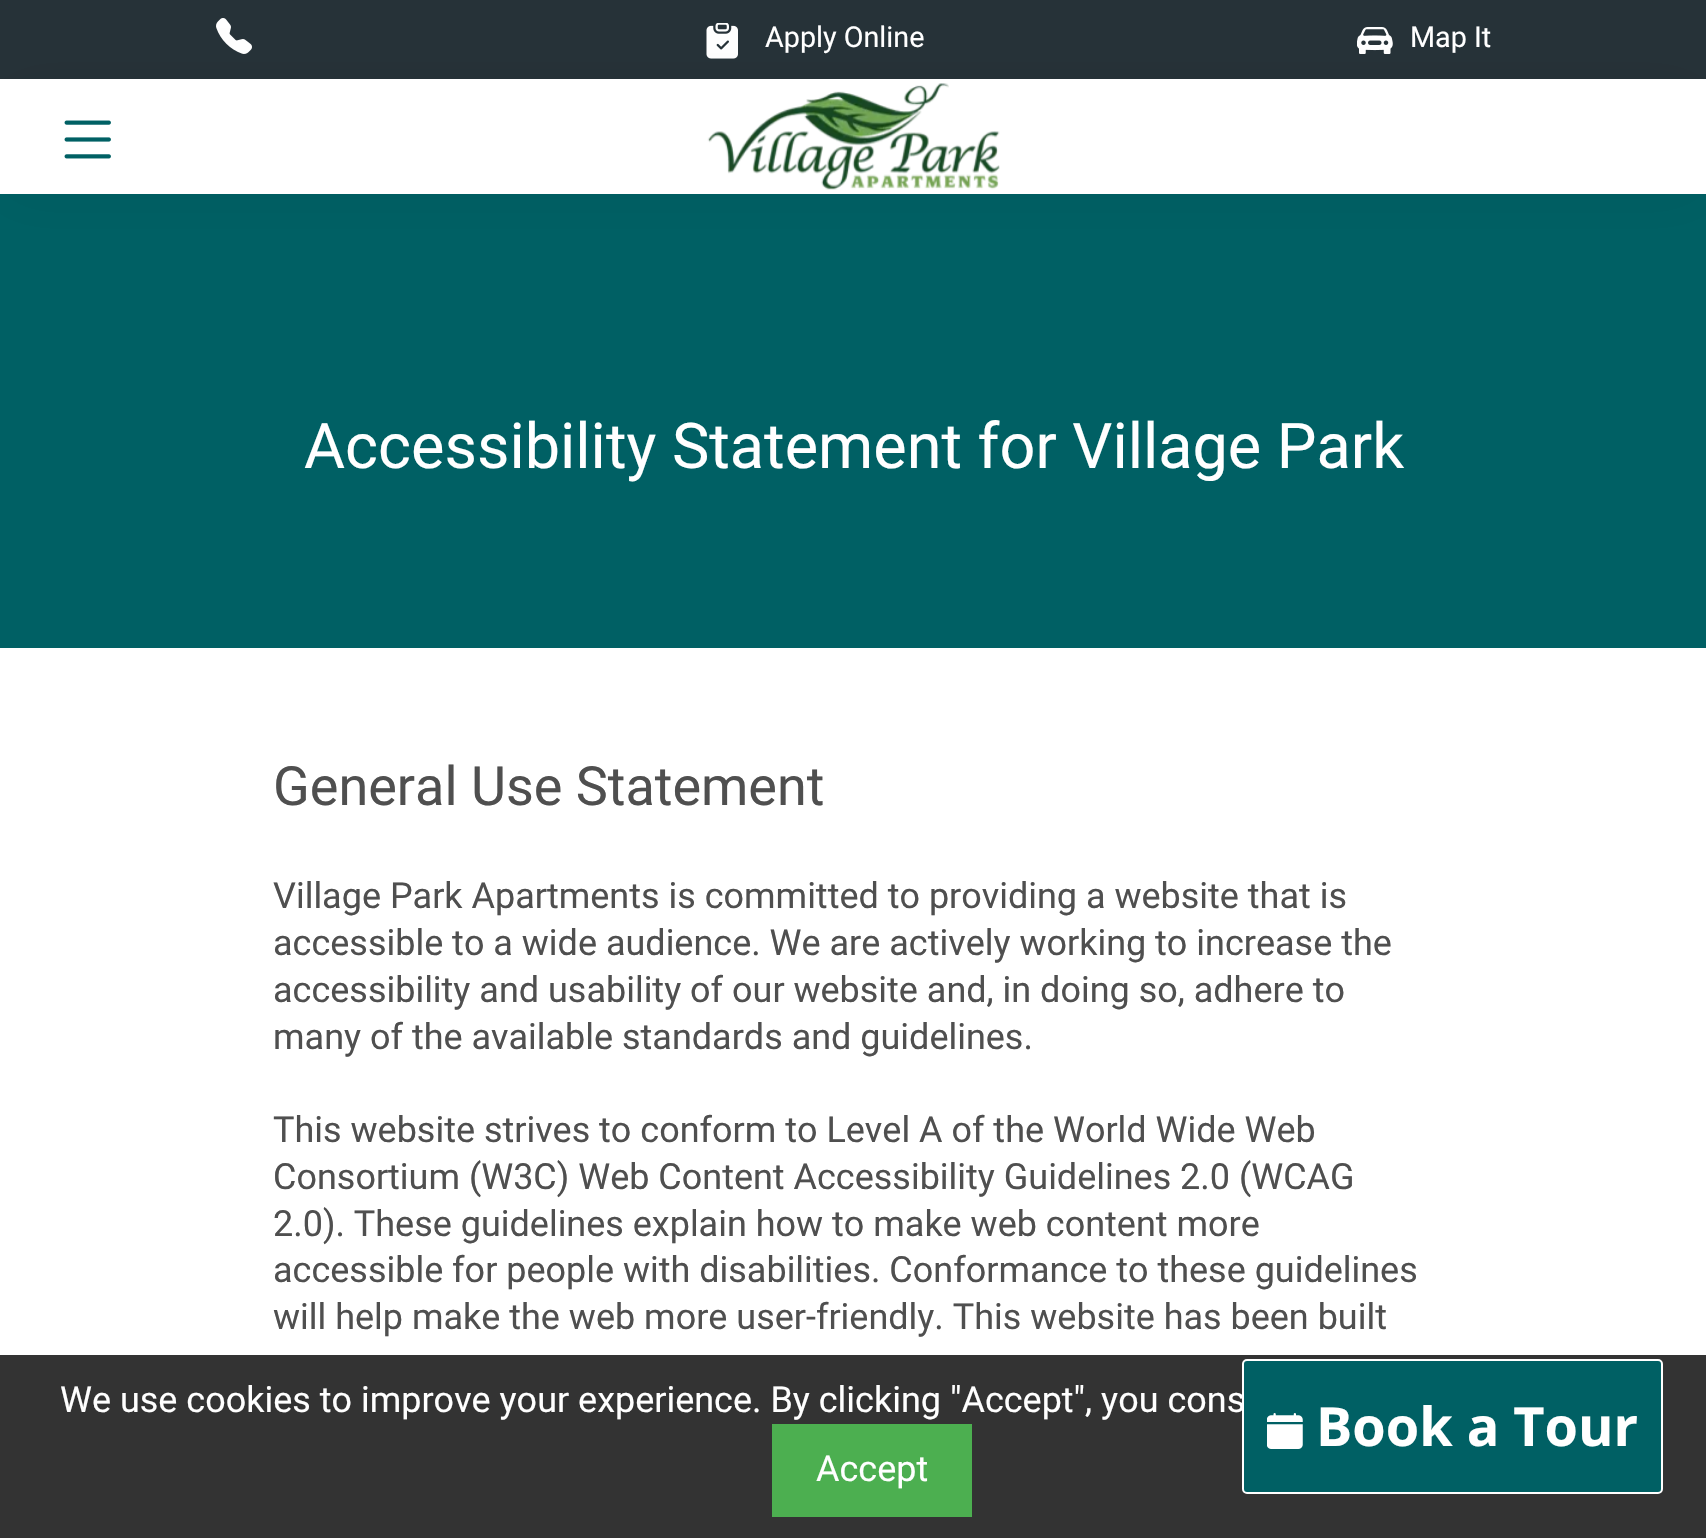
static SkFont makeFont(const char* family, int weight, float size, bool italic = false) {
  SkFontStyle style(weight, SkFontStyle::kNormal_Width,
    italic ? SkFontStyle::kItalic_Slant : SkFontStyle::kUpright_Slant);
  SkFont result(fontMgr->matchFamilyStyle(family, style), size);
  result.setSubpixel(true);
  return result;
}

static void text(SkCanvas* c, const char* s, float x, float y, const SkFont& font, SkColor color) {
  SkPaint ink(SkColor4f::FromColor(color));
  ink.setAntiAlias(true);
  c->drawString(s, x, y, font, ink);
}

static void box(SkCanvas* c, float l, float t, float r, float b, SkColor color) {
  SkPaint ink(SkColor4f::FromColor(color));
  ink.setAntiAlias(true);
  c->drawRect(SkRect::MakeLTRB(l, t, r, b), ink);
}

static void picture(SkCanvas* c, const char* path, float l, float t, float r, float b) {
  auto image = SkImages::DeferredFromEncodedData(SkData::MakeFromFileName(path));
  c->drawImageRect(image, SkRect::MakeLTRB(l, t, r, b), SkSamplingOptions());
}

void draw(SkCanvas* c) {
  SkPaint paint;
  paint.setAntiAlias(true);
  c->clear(0xffffffff);
  box(c, 0, 0, 1706, 79, 0xff263238);
  picture(c, "img_03.png", 216, 18, 252, 54);
  picture(c, "img_04.png", 706, 23, 738, 59);
  picture(c, "img_05.png", 1357, 27, 1393, 54);
  box(c, 0, 194, 1706, 648, 0xff006064);
  paint.setColor(0x12000000);
  paint.setMaskFilter(SkMaskFilter::MakeBlur(kNormal_SkBlurStyle, 28));
  c->drawRect(SkRect::MakeLTRB(11, 95, 1697, 187), paint);
  paint.setMaskFilter(nullptr);
  box(c, 0, 79, 1706, 194, 0xffffffff);
  picture(c, "img_01.png", 64, 120, 111, 159);
  picture(c, "img_02.png", 707, 83, 1000, 190);
  SkFont face1 = makeFont("Roboto", 400, 28.75f);
  text(c, "Apply Online", 765, 47, face1, 0xffffffff);
  text(c, "Map It", 1410, 47, face1, 0xffffffff);
  SkFont face2 = makeFont("Roboto", 400, 63);
  text(c, "Accessibility Statement for Village Park", 304, 468, face2, 0xffffffff);
  SkFont face3 = makeFont("Roboto", 400, 54);
  text(c, "General Use Statement", 273, 805, face3, 0xff4f4f4f);
  SkFont face4 = makeFont("Roboto", 400, 36);
  text(c, "Village Park Apartments is committed to providing a website that is", 273, 908, face4, 0xff4f4f4f);
  text(c, "accessible to a wide audience. We are actively working to increase the", 273, 955, face4, 0xff4f4f4f);
  text(c, "accessibility and usability of our website and, in doing so, adhere to", 273, 1002, face4, 0xff4f4f4f);
  text(c, "many of the available standards and guidelines.", 273, 1049, face4, 0xff4f4f4f);
  text(c, "This website strives to conform to Level A of the World Wide Web", 273, 1142, face4, 0xff4f4f4f);
  text(c, "Consortium (W3C) Web Content Accessibility Guidelines 2.0 (WCAG", 273, 1189, face4, 0xff4f4f4f);
  text(c, "2.0). These guidelines explain how to make web content more", 273, 1236, face4, 0xff4f4f4f);
  text(c, "accessible for people with disabilities. Conformance to these guidelines", 273, 1282, face4, 0xff4f4f4f);
  text(c, "will help make the web more user-friendly. This website has been built", 273, 1329, face4, 0xff4f4f4f);
  box(c, 0, 1355, 1706, 1538, 0xff333333);
  text(c, "We use cookies to improve your experience. By clicking \"Accept\", you cons", 60, 1412, face4, 0xffffffff);
  box(c, 772, 1424, 972, 1517, 0xff4caf50);
  text(c, "Accept", 816, 1481, face4, 0xffffffff);
  paint.setColor(0xff006064);
  c->drawRoundRect(SkRect::MakeLTRB(1243, 1360, 1662, 1493), 4, 4, paint);
  paint.setStyle(SkPaint::kStroke_Style);
  paint.setStrokeWidth(2);
  paint.setColor(0xffffffff);
  c->drawRoundRect(SkRect::MakeLTRB(1243, 1360, 1662, 1493), 4, 4, paint);
  picture(c, "img_06.png", 1267, 1413, 1303, 1449);
  SkFont face5 = makeFont("Open Sans", 700, 54);
  text(c, "Book a Tour", 1316, 1446, face5, 0xffffffff);
}
